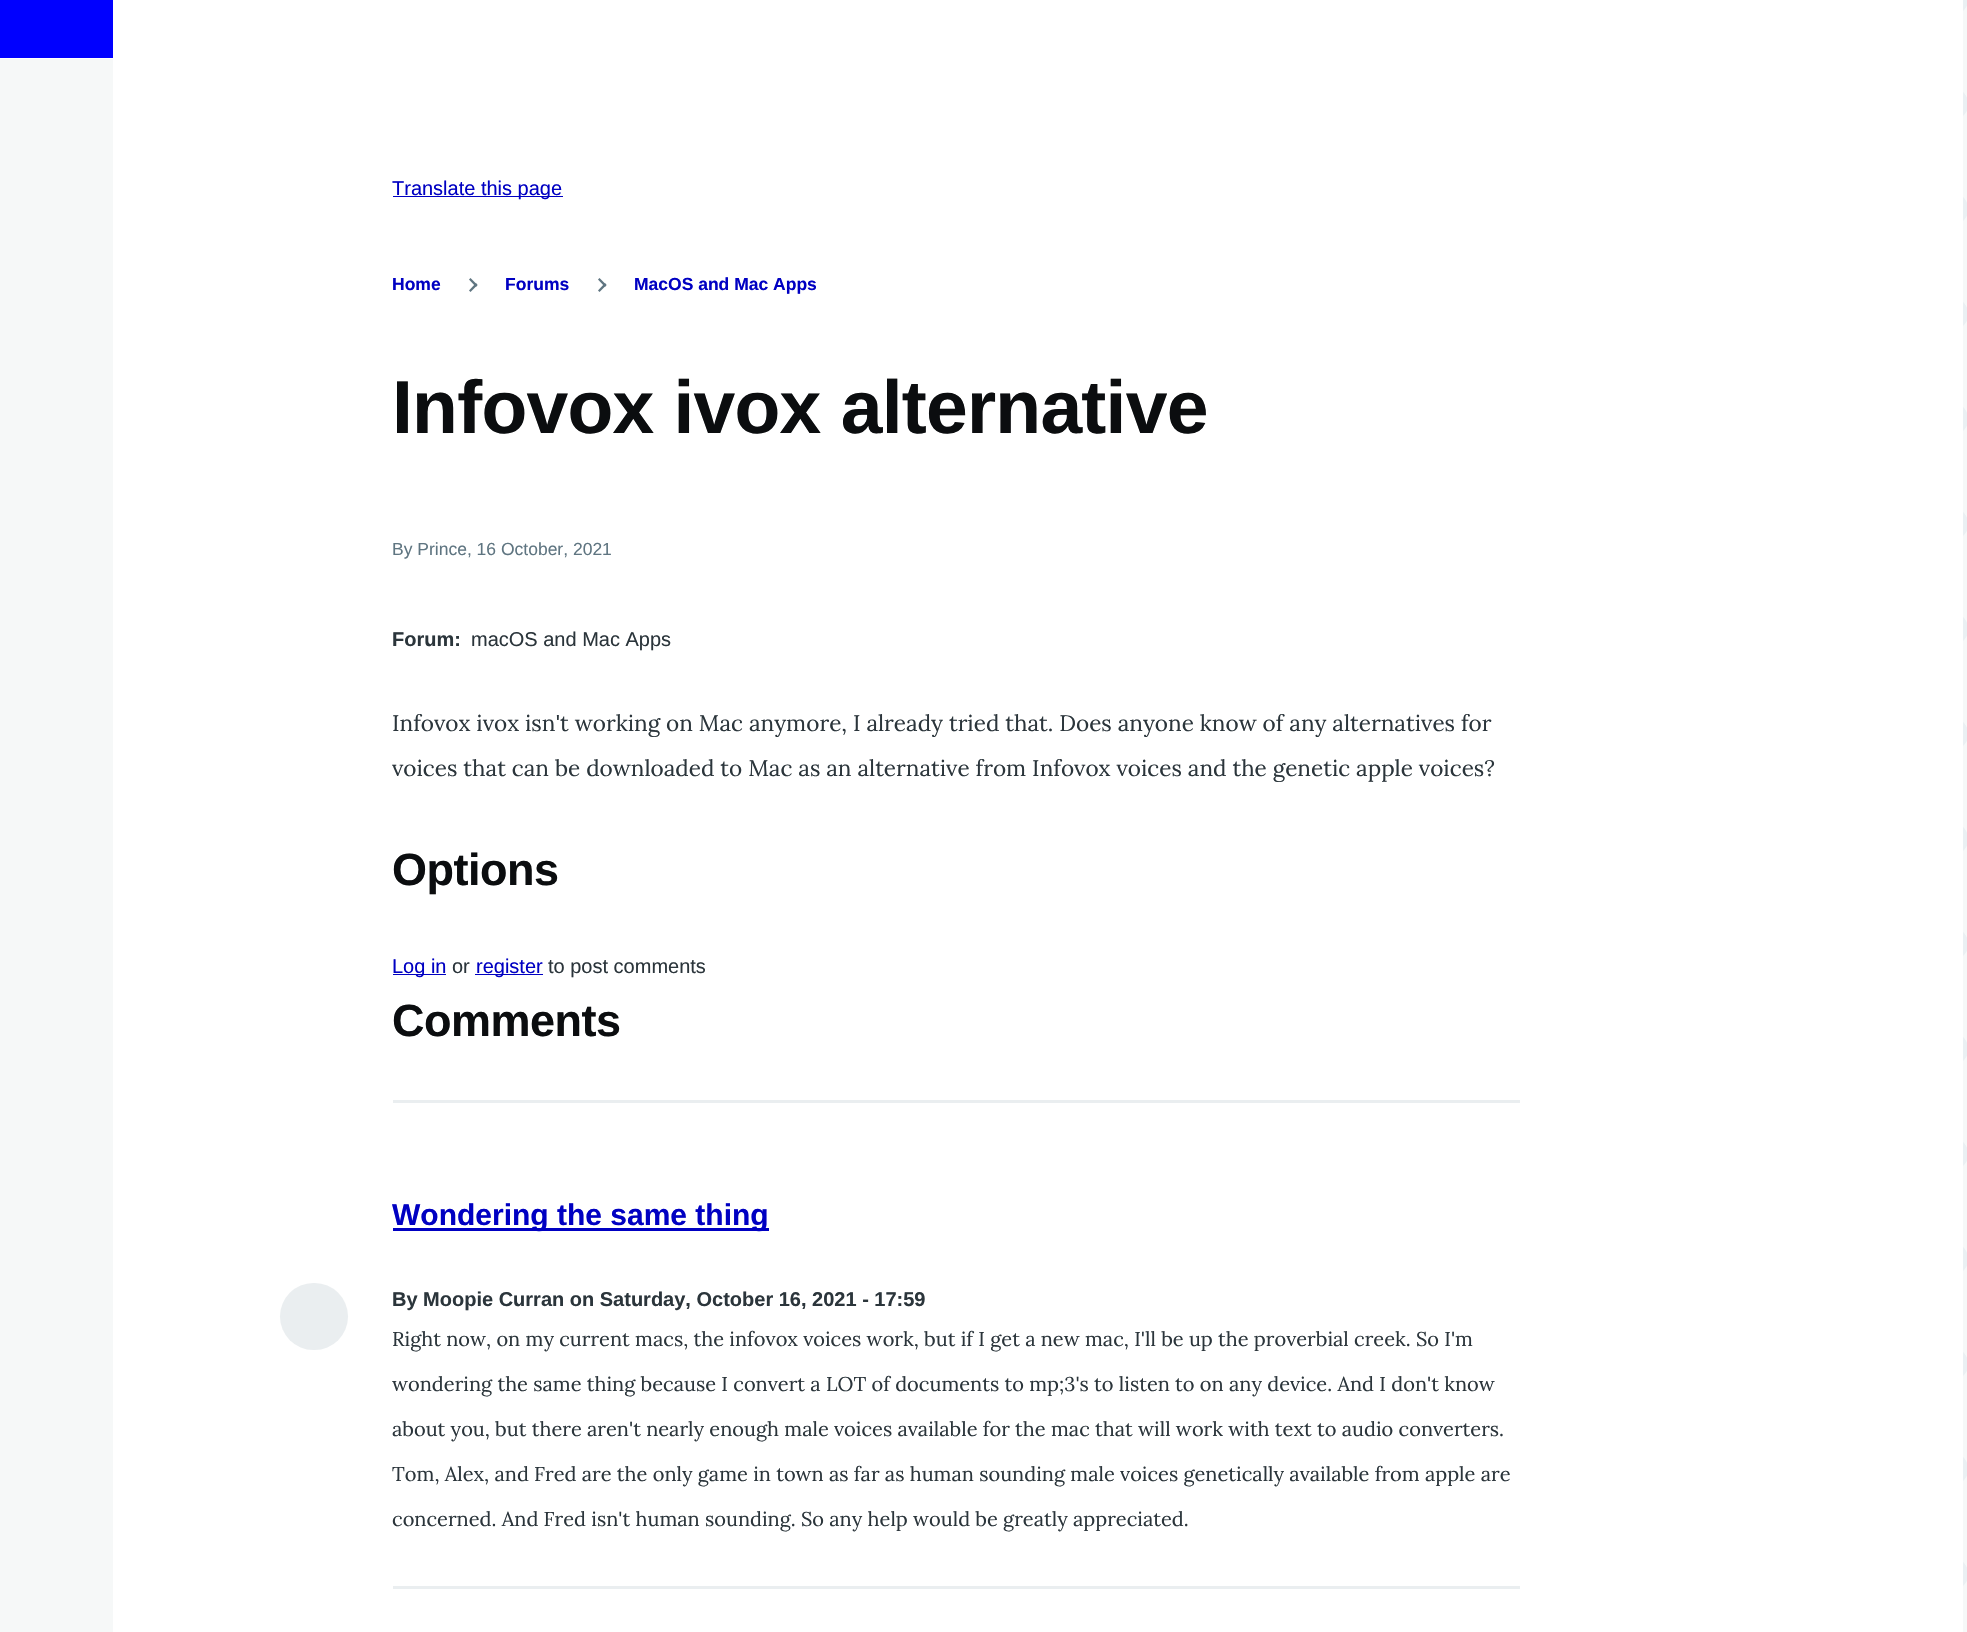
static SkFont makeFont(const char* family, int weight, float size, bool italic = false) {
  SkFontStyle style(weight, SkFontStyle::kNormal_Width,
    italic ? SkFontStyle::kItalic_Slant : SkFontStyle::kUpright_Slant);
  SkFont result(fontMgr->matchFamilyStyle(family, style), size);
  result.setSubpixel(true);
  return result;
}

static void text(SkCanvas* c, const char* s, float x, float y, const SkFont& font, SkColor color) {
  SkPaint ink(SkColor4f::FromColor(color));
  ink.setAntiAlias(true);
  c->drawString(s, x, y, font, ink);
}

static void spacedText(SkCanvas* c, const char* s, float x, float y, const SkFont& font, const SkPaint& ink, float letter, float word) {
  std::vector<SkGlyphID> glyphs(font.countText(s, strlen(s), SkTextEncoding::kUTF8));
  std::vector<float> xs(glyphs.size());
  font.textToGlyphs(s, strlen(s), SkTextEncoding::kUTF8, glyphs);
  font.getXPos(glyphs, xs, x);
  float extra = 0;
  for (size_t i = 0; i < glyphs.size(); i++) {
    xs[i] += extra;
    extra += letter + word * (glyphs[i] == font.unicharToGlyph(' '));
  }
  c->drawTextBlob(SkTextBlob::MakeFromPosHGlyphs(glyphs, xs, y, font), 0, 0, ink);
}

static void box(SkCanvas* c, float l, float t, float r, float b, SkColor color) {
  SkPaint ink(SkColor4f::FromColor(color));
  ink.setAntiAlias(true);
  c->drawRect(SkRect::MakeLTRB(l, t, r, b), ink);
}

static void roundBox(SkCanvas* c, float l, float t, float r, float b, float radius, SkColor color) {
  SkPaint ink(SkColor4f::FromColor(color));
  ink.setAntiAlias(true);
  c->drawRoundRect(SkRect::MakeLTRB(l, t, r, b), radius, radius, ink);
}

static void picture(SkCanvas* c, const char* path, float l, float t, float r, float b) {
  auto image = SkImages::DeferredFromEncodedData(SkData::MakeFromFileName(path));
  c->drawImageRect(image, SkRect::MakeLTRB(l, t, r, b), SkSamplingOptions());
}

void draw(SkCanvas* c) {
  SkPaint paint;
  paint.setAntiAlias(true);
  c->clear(0xfff6f8f8);
  picture(c, "img_01.png", 1963, 0, 1967, 1586);
  box(c, 0, 0, 1963, 1632, 0xffffffff);
  box(c, 0, 0, 113, 58, 0xff0000ff);
  box(c, 0, 59, 113, 1632, 0xfff6f8f8);
  box(c, 393, 196, 563, 197, 0xff0000c2);
  SkFont face1 = makeFont("Liberation Sans", 400, 20);
  text(c, "Translate this page", 392, 195, face1, 0xff0000c2);
  SkFont face2 = makeFont("Liberation Sans", 700, 17.5f);
  text(c, "Home", 392, 290, face2, 0xff0000c2);
  paint.setColor(0xff5f7581);
  c->drawPath(SkPathBuilder().moveTo(470.5f, 278).lineTo(477.5f, 285).lineTo(476, 287).lineTo(469, 279.5f).close().detach(), paint);
  c->drawPath(SkPathBuilder().moveTo(476, 283).lineTo(477.5f, 285).lineTo(470.5f, 292).lineTo(469, 290.5f).close().detach(), paint);
  text(c, "Forums", 505, 290, face2, 0xff0000c2);
  c->drawPath(SkPathBuilder().moveTo(599.5f, 278).lineTo(606.5f, 285).lineTo(605, 287).lineTo(598, 279.5f).close().detach(), paint);
  c->drawPath(SkPathBuilder().moveTo(605, 283).lineTo(606.5f, 285).lineTo(599.5f, 292).lineTo(598, 290.5f).close().detach(), paint);
  text(c, "MacOS and Mac Apps", 634, 290, face2, 0xff0000c2);
  SkFont face3 = makeFont("Liberation Sans", 700, 75);
  paint.setColor(0xff0b0d0f);
  spacedText(c, "Infovox ivox alternative", 392, 433, face3, paint, -0.75f, 0);
  SkFont face4 = makeFont("Liberation Sans", 400, 17.5f);
  text(c, "By Prince, 16 October, 2021", 392, 555, face4, 0xff5f7581);
  SkFont face5 = makeFont("Liberation Sans", 700, 20);
  text(c, "Forum:", 392, 646, face5, 0xff2b353b);
  text(c, "macOS and Mac Apps", 471, 646, face1, 0xff2b353b);
  SkFont face6 = makeFont("Lora", 400, 22.5f);
  text(c, "Infovox ivox isn't working on Mac anymore, I already tried that. Does anyone know of any alternatives for", 392, 731, face6, 0xff2b353b);
  text(c, "voices that can be downloaded to Mac as an alternative from Infovox voices and the genetic apple voices?", 392, 776, face6, 0xff2b353b);
  SkFont face7 = makeFont("Liberation Sans", 700, 45);
  spacedText(c, "Options", 392, 885, face7, paint, -0.5f, 0);
  box(c, 393, 974, 446, 975, 0xff0000c2);
  text(c, "Log in", 392, 973, face1, 0xff0000c2);
  text(c, "or", 452, 973, face1, 0xff2b353b);
  box(c, 475, 974, 543, 975, 0xff0000c2);
  text(c, "register", 476, 973, face1, 0xff0000c2);
  text(c, "to post comments", 548, 973, face1, 0xff2b353b);
  spacedText(c, "Comments", 392, 1036, face7, paint, -0.5f, 0);
  box(c, 393, 1100, 1520, 1103, 0xffeaeef0);
  box(c, 393, 1228, 769, 1231, 0xff0000c2);
  SkFont face8 = makeFont("Liberation Sans", 700, 30);
  text(c, "Wondering the same thing", 392, 1225, face8, 0xff0000c2);
  roundBox(c, 280, 1283, 348, 1350, 33.5f, 0xffeaeef0);
  text(c, "By Moopie Curran on Saturday, October 16, 2021 - 17:59", 392, 1306, face5, 0xff2b353b);
  SkFont face9 = makeFont("Lora", 400, 20);
  text(c, "Right now, on my current macs, the infovox voices work, but if I get a new mac, I'll be up the proverbial creek. So I'm", 392, 1346, face9, 0xff2b353b);
  text(c, "wondering the same thing because I convert a LOT of documents to mp;3's to listen to on any device. And I don't know", 392, 1391, face9, 0xff2b353b);
  text(c, "about you, but there aren't nearly enough male voices available for the mac that will work with text to audio converters.", 392, 1436, face9, 0xff2b353b);
  text(c, "Tom, Alex, and Fred are the only game in town as far as human sounding male voices genetically available from apple are", 392, 1481, face9, 0xff2b353b);
  text(c, "concerned. And Fred isn't human sounding. So any help would be greatly appreciated.", 392, 1526, face9, 0xff2b353b);
  box(c, 393, 1586, 1520, 1589, 0xffeaeef0);
}
